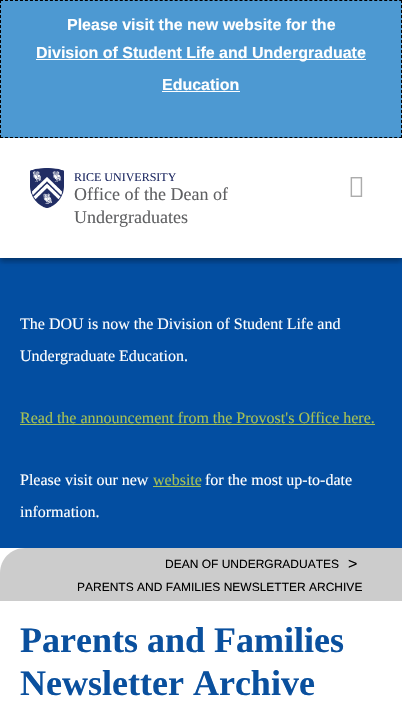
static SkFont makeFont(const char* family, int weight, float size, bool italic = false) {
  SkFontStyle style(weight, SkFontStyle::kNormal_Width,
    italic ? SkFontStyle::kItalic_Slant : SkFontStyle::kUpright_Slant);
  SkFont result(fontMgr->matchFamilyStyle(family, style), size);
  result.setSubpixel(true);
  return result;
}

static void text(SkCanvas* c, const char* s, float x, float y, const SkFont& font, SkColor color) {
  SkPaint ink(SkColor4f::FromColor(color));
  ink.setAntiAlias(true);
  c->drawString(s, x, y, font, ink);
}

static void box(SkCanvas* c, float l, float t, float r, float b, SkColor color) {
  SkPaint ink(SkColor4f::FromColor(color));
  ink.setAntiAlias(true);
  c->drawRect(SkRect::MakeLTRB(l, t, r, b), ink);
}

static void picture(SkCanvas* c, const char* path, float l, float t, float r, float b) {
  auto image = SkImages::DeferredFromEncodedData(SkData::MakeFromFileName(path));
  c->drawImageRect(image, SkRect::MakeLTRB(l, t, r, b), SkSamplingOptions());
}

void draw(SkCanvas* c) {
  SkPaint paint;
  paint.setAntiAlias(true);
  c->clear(0xffffffff);
  box(c, 0, 0, 402, 138, 0xff4d99d2);
  paint.setStyle(SkPaint::kStroke_Style);
  paint.setStrokeWidth(1);
  paint.setColor(0xff000000);
  paint.setPathEffect(SkDashPathEffect::Make({{3, 1.99f}}, 0));
  c->drawPath(SkPathBuilder().moveTo(0, 0.5f).lineTo(402, 0.5f).detach(), paint);
  paint.setPathEffect(nullptr);
  paint.setPathEffect(SkDashPathEffect::Make({{3, 2}}, 0));
  c->drawPath(SkPathBuilder().moveTo(401.5f, 0).lineTo(401.5f, 138).detach(), paint);
  paint.setPathEffect(nullptr);
  paint.setPathEffect(SkDashPathEffect::Make({{3, 1.99f}}, 0));
  c->drawPath(SkPathBuilder().moveTo(0, 137.5f).lineTo(402, 137.5f).detach(), paint);
  paint.setPathEffect(nullptr);
  paint.setPathEffect(SkDashPathEffect::Make({{3, 2}}, 0));
  c->drawPath(SkPathBuilder().moveTo(0.5f, 0).lineTo(0.5f, 138).detach(), paint);
  paint.setPathEffect(nullptr);
  SkFont face1 = makeFont("Liberation Sans", 700, 16);
  text(c, "Please visit the new website for the", 67, 30, face1, 0xffffffff);
  box(c, 36, 59, 366, 60, 0xffffffff);
  text(c, "Division of Student Life and Undergraduate", 36, 58, face1, 0xffffffff);
  text(c, "Education", 162, 90, face1, 0xffffffff);
  box(c, 162, 91, 240, 92, 0xffffffff);
  box(c, 0, 258, 402, 548, 0xff034ea1);
  c->save();
  c->clipPath(SkPathBuilder(SkPathFillType::kEvenOdd).moveTo(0, 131).lineTo(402, 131).lineTo(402, 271).lineTo(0, 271).close().moveTo(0, 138).lineTo(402, 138).lineTo(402, 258).lineTo(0, 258).close().detach(), true);
  paint.setStyle(SkPaint::kFill_Style);
  paint.setColor(0x3b000000);
  paint.setMaskFilter(SkMaskFilter::MakeBlur(kNormal_SkBlurStyle, 3));
  c->drawRect(SkRect::MakeLTRB(0, 141, 402, 261), paint);
  paint.setMaskFilter(nullptr);
  c->restore();
  c->save();
  c->clipRect(SkRect::MakeLTRB(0, 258, 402, 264));
  paint.setColor(0x29000000);
  paint.setMaskFilter(SkMaskFilter::MakeBlur(kNormal_SkBlurStyle, 3));
  c->drawRect(SkRect::MakeLTRB(0, 141, 402, 261), paint);
  paint.setMaskFilter(nullptr);
  c->restore();
  picture(c, "img_01.png", 30, 168, 64, 208);
  SkFont face2 = makeFont("Liberation Serif", 400, 12);
  text(c, "RICE UNIVERSITY", 74, 181, face2, 0xff222d65);
  SkFont face3 = makeFont("Liberation Serif", 400, 18);
  text(c, "Office of the Dean of", 74, 200, face3, 0xff5f6062);
  text(c, "Undergraduates", 74, 223, face3, 0xff5f6062);
  picture(c, "img_02.png", 350, 177, 363, 197);
  SkFont face4 = makeFont("Liberation Serif", 400, 16);
  text(c, "The DOU is now the Division of Student Life and", 20, 329, face4, 0xffffffff);
  text(c, "Undergraduate Education.", 20, 361, face4, 0xffffffff);
  text(c, "Read the announcement from the Provost's Office here.", 20, 423, face4, 0xffa4c055);
  box(c, 20, 424, 375, 425, 0xffa4c055);
  text(c, "Please visit our new", 20, 485, face4, 0xffffffff);
  text(c, "website", 153, 485, face4, 0xffa4c055);
  box(c, 153, 486, 201, 487, 0xffa4c055);
  text(c, "for the most up-to-date", 205, 485, face4, 0xffffffff);
  text(c, "information.", 20, 517, face4, 0xffffffff);
  paint.setColor(0xffcccccc);
  c->drawPath(SkPathBuilder().moveTo(25, 548).lineTo(402, 548).lineTo(402, 601).lineTo(0, 601).lineTo(0, 573).cubicTo(0, 559, 11, 548, 25, 548).close().detach(), paint);
  SkFont face5 = makeFont("Liberation Sans", 400, 12);
  text(c, "DEAN OF UNDERGRADUATES", 165, 568, face5, 0xff000000);
  SkFont face6 = makeFont("Liberation Sans", 400, 16);
  text(c, ">", 348, 569, face6, 0xff000000);
  text(c, "PARENTS AND FAMILIES NEWSLETTER ARCHIVE", 77, 591, face5, 0xff000000);
  SkFont face7 = makeFont("Liberation Serif", 700, 36);
  text(c, "Parents and Families", 20, 652, face7, 0xff0a509e);
  text(c, "Newsletter Archive", 20, 695, face7, 0xff0a509e);
}
